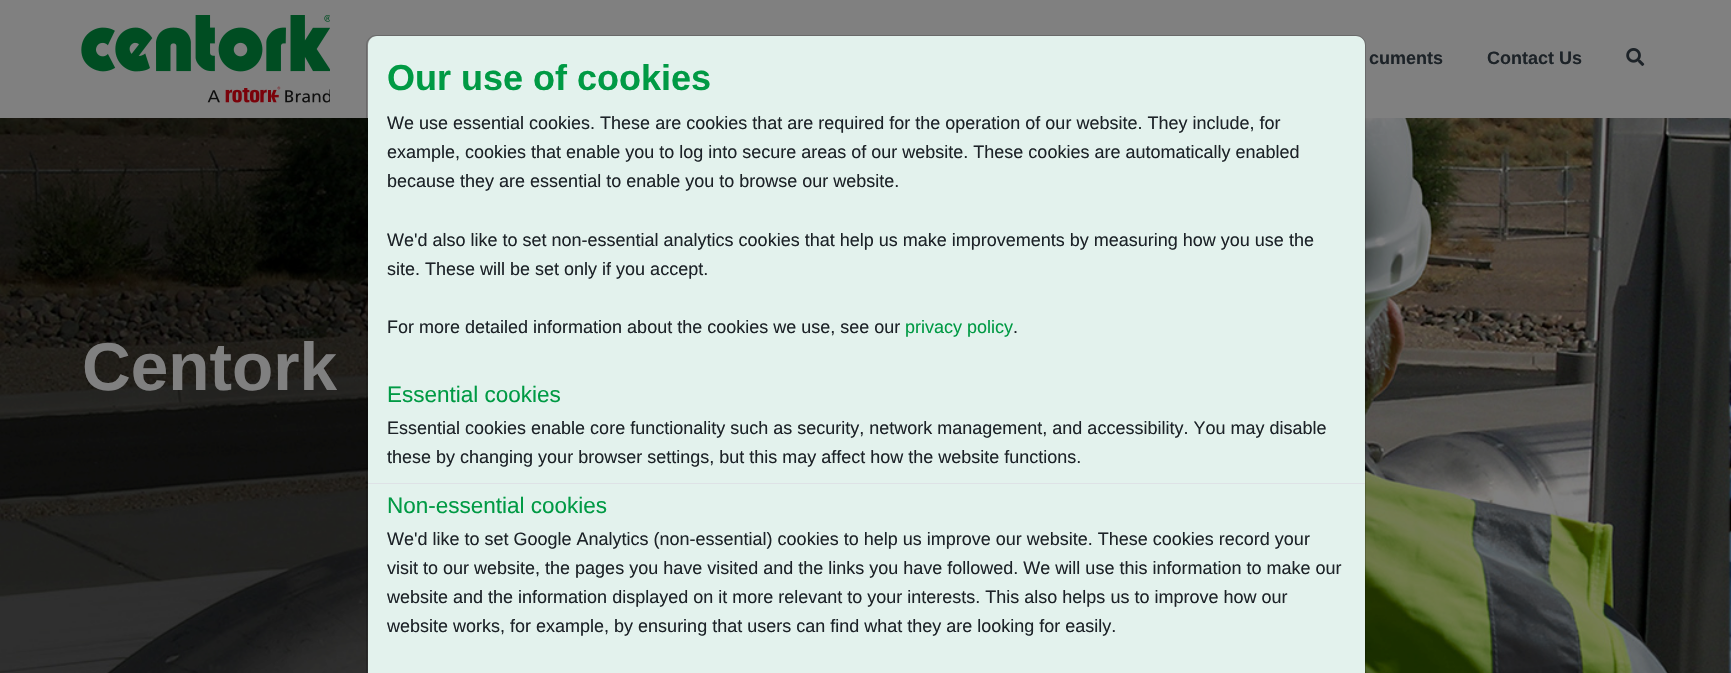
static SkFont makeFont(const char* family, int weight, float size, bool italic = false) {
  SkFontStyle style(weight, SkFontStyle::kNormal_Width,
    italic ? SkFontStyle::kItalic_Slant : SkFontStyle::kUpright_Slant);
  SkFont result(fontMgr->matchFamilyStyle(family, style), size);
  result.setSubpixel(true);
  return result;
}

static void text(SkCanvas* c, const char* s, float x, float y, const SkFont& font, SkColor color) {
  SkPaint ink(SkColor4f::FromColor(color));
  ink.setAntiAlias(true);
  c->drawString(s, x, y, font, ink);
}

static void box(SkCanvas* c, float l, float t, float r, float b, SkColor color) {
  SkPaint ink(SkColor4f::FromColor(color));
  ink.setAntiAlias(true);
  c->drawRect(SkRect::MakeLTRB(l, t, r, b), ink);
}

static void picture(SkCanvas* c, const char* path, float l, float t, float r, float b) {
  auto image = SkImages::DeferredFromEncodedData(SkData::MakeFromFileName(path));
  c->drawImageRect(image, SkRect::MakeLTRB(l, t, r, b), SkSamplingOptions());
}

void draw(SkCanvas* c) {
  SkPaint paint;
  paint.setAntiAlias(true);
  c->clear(0xffffffff);
  box(c, 0, 0, 1731, 118, 0xff808080);
  picture(c, "img_01.png", 81, 15, 330, 103);
  SkFont face1 = makeFont("Liberation Sans", 700, 18);
  text(c, "cuments", 1369, 64, face1, 0xff1d2328);
  text(c, "Contact Us", 1487, 64, face1, 0xff1d2328);
  picture(c, "img_02.png", 1626, 48, 1645, 66);
  picture(c, "img_03.png", 0, 118, 1731, 673);
  SkFont face2 = makeFont("Liberation Sans", 700, 67.5f);
  text(c, "Centork", 82, 390, face2, 0xff808080);
  paint.setColor(0xffe3f2ed);
  c->drawPath(SkPathBuilder().moveTo(377, 36).lineTo(1356, 36).cubicTo(1361, 36, 1365, 40, 1365, 45).lineTo(1365, 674).lineTo(368, 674).lineTo(368, 45).cubicTo(368, 40, 372, 36, 377, 36).close().detach(), paint);
  paint.setStyle(SkPaint::kStroke_Style);
  paint.setStrokeWidth(1);
  paint.setColor(0x2e000000);
  c->drawRoundRect(SkRect::MakeLTRB(366.5f, 35.5f, 1365.5f, 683.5f), 9.5f, 9.5f, paint);
  SkFont face3 = makeFont("Liberation Sans", 700, 36);
  text(c, "Our use of cookies", 387, 90, face3, 0xff009a44);
  SkFont face4 = makeFont("Liberation Sans", 400, 18);
  text(c, "We use essential cookies. These are cookies that are required for the operation of our website. They include, for", 387, 129, face4, 0xff1d2328);
  text(c, "example, cookies that enable you to log into secure areas of our website. These cookies are automatically enabled", 387, 158, face4, 0xff1d2328);
  text(c, "because they are essential to enable you to browse our website.", 387, 187, face4, 0xff1d2328);
  text(c, "We'd also like to set non-essential analytics cookies that help us make improvements by measuring how you use the", 387, 246, face4, 0xff1d2328);
  text(c, "site. These will be set only if you accept.", 387, 275, face4, 0xff1d2328);
  text(c, "For more detailed information about the cookies we use, see our", 387, 333, face4, 0xff1d2328);
  text(c, "privacy policy", 905, 333, face4, 0xff009a44);
  text(c, ".", 1013, 333, face4, 0xff1d2328);
  box(c, 368, 483, 1365, 484, 0xffdee2e6);
  SkFont face5 = makeFont("Liberation Sans", 400, 22.5f);
  text(c, "Essential cookies", 387, 402, face5, 0xff009a44);
  text(c, "Essential cookies enable core functionality such as security, network management, and accessibility. You may disable", 387, 434, face4, 0xff1d2328);
  text(c, "these by changing your browser settings, but this may affect how the website functions.", 387, 463, face4, 0xff1d2328);
  text(c, "Non-essential cookies", 387, 513, face5, 0xff009a44);
  text(c, "We'd like to set Google Analytics (non-essential) cookies to help us improve our website. These cookies record your", 387, 545, face4, 0xff1d2328);
  text(c, "visit to our website, the pages you have visited and the links you have followed. We will use this information to make our", 387, 574, face4, 0xff1d2328);
  text(c, "website and the information displayed on it more relevant to your interests. This also helps us to improve how our", 387, 603, face4, 0xff1d2328);
  text(c, "website works, for example, by ensuring that users can find what they are looking for easily.", 387, 632, face4, 0xff1d2328);
}
